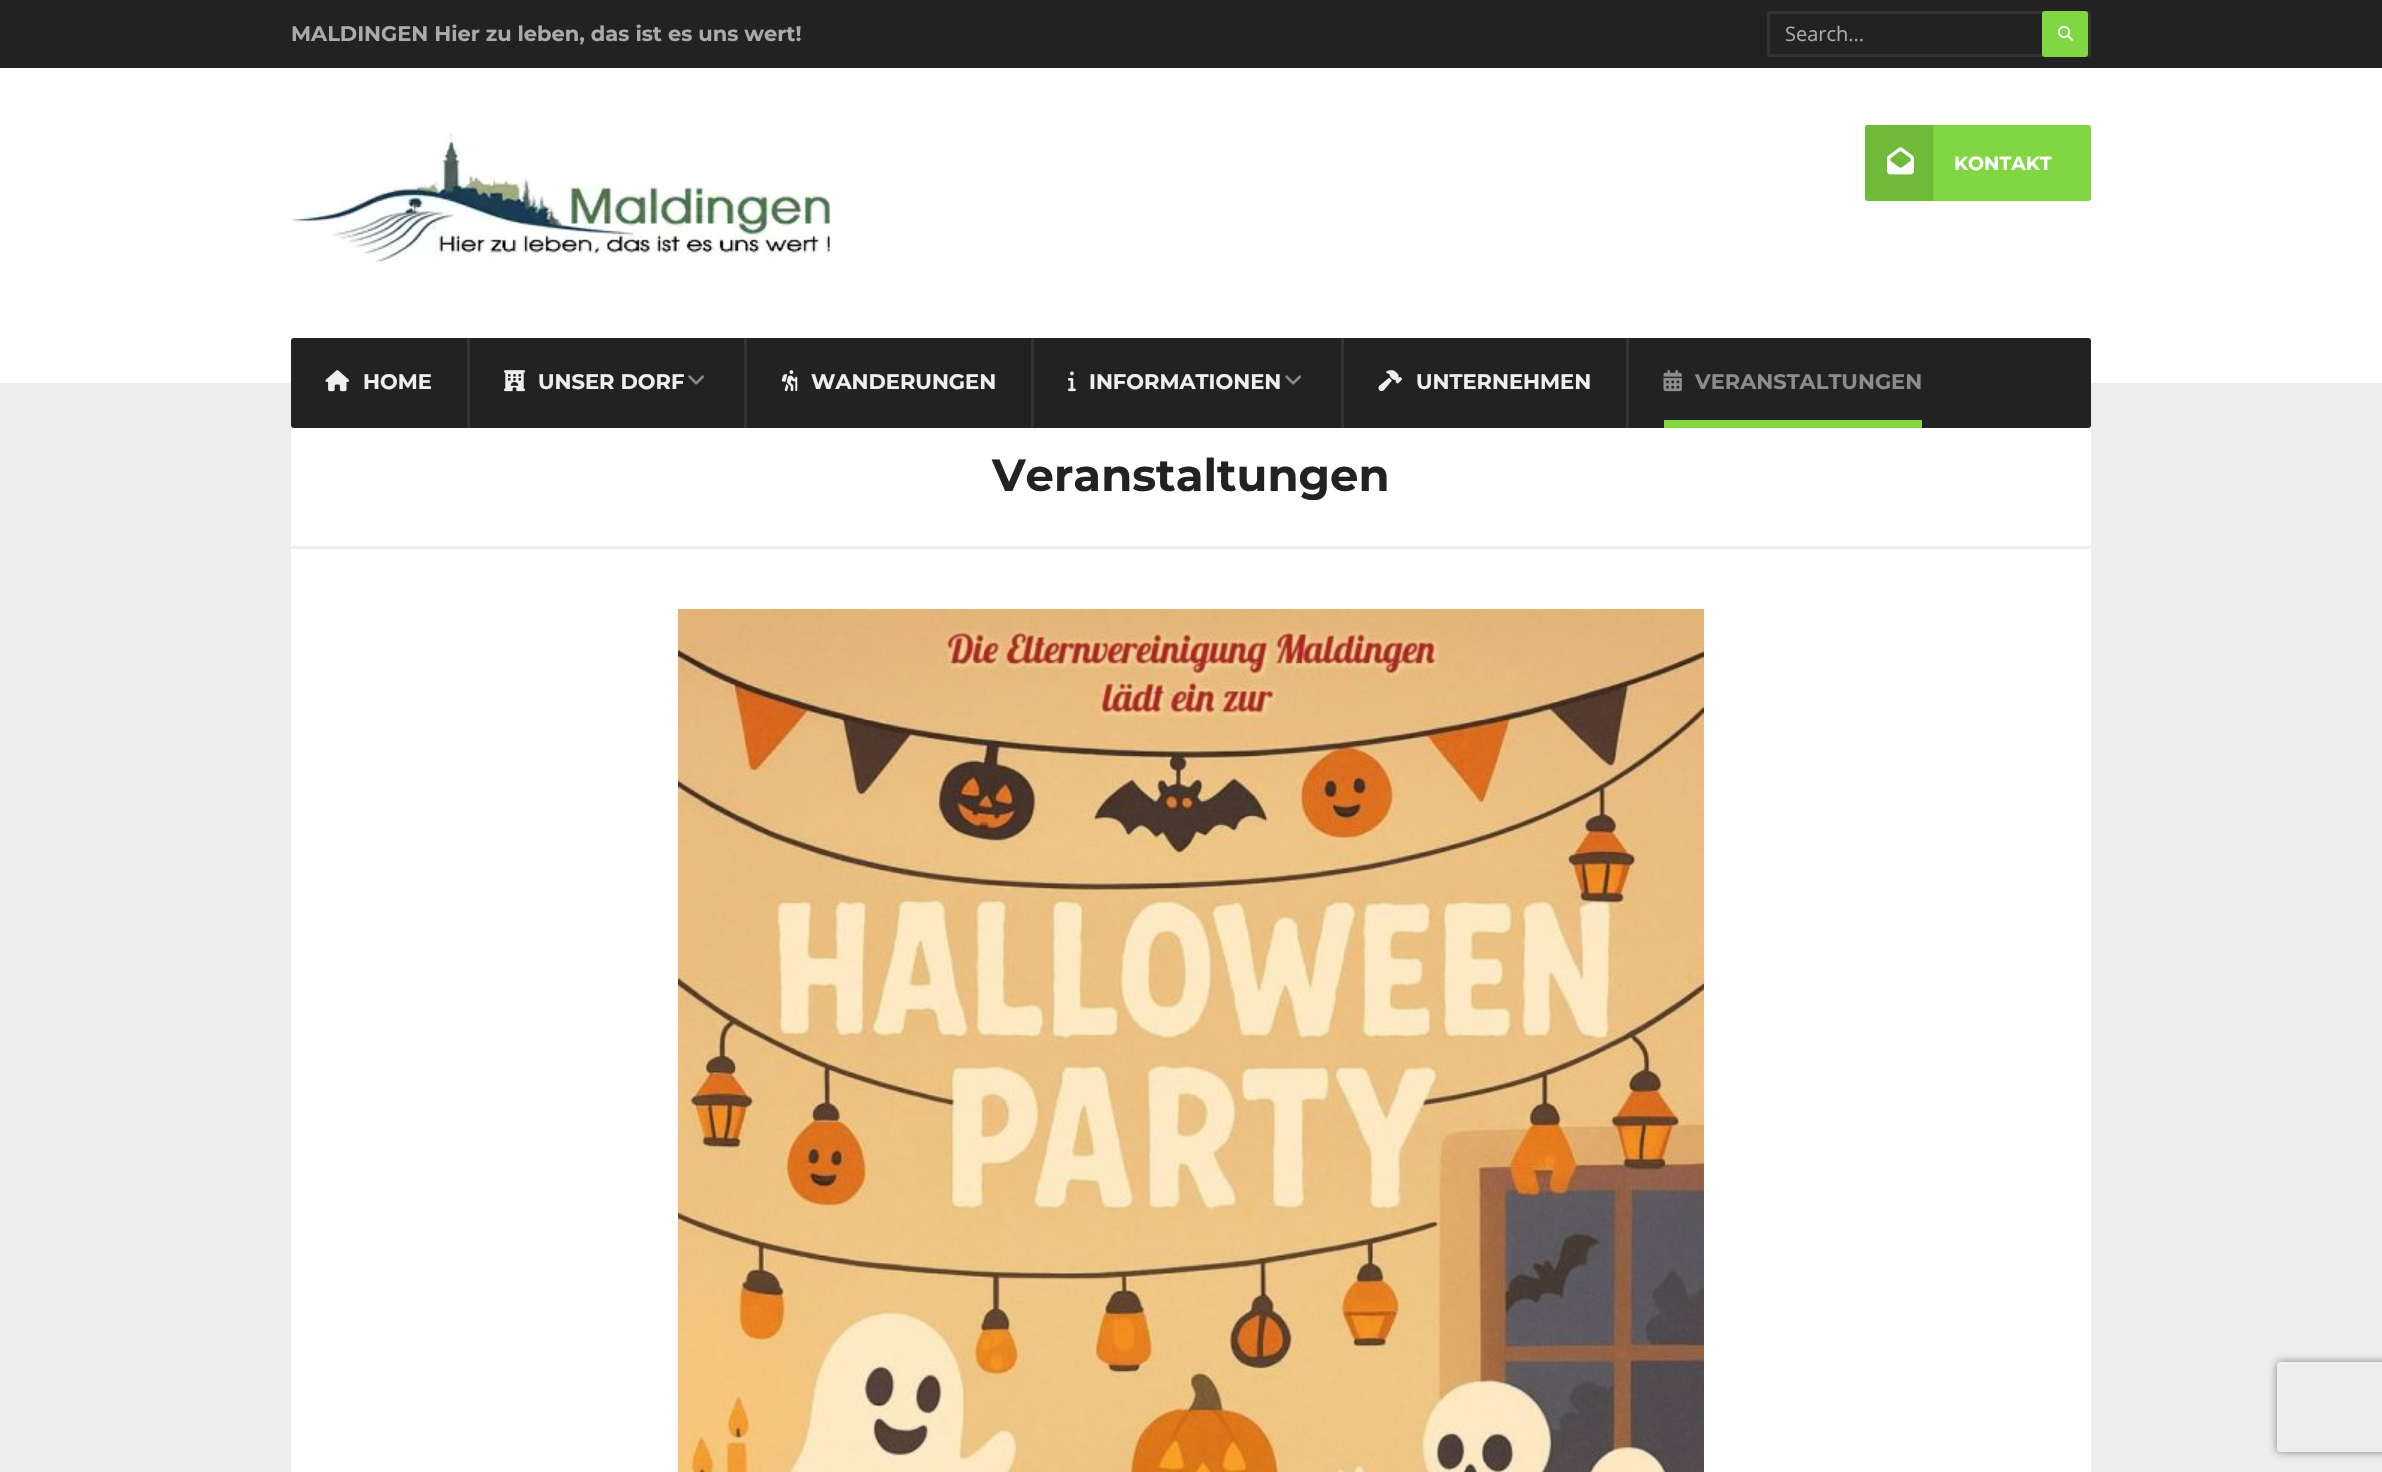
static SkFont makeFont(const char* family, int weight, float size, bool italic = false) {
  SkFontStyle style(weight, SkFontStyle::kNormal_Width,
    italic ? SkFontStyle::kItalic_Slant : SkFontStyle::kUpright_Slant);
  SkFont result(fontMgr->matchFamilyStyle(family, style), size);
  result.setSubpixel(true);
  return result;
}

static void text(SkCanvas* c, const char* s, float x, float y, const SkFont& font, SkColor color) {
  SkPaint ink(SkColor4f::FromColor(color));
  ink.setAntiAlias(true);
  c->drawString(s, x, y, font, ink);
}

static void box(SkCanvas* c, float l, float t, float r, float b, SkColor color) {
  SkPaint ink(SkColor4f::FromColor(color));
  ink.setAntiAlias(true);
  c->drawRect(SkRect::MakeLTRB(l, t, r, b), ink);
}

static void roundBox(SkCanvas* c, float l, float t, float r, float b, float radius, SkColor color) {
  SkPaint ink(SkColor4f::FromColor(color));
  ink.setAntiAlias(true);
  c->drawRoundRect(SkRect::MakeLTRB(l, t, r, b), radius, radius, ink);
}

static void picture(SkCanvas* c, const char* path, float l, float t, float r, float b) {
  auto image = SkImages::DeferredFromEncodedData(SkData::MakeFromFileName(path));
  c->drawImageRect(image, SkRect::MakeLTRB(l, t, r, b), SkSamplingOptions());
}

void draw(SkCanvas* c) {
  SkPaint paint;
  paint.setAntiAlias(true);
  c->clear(0xffededed);
  box(c, 0, 0, 2382, 68, 0xff222222);
  SkFont face1 = makeFont("Montserrat", 700, 21);
  text(c, "MALDINGEN Hier zu leben, das ist es uns wert!", 291, 41, face1, 0xffaaaaaa);
  paint.setStyle(SkPaint::kStroke_Style);
  paint.setStrokeWidth(3);
  paint.setColor(0xff333333);
  c->drawRoundRect(SkRect::MakeLTRB(1768.5f, 12.5f, 2089.5f, 55.5f), 1.5f, 1.5f, paint);
  SkFont face2 = makeFont("Open Sans", 400, 20);
  text(c, "Search...", 1785, 41, face2, 0xffaaaaaa);
  roundBox(c, 2042, 11, 2088, 57, 3, 0xff81d742);
  picture(c, "img_01.png", 2058, 25, 2073, 41);
  box(c, 0, 68, 2382, 383, 0xffffffff);
  picture(c, "img_02.png", 291, 133, 831, 265);
  roundBox(c, 1865, 125, 2091, 201, 3, 0xff81d742);
  picture(c, "img_03.png", 1864, 124, 1934, 201);
  picture(c, "img_04.png", 1887, 147, 1914, 175);
  SkFont face3 = makeFont("Montserrat", 700, 19);
  text(c, "KONTAKT", 1954, 170, face3, 0xffffffff);
  box(c, 291, 425, 2091, 1472, 0xffffffff);
  roundBox(c, 291, 338, 2091, 428, 3, 0xff222222);
  picture(c, "img_05.png", 325, 370, 350, 392);
  text(c, "HOME", 363, 389, face1, 0xffefefef);
  box(c, 467, 338, 470, 428, 0xff333333);
  picture(c, "img_06.png", 504, 370, 525, 392);
  text(c, "UNSER DORF", 538, 389, face1, 0xffefefef);
  picture(c, "img_07.png", 688, 375, 704, 385);
  box(c, 744, 338, 747, 428, 0xff333333);
  picture(c, "img_08.png", 781, 370, 798, 392);
  text(c, "WANDERUNGEN", 811, 389, face1, 0xffefefef);
  box(c, 1031, 338, 1034, 428, 0xff333333);
  picture(c, "img_09.png", 1068, 371, 1076, 392);
  text(c, "INFORMATIONEN", 1089, 389, face1, 0xffefefef);
  picture(c, "img_07.png", 1285, 375, 1301, 385);
  box(c, 1341, 338, 1344, 428, 0xff333333);
  picture(c, "img_10.png", 1378, 370, 1402, 392);
  text(c, "UNTERNEHMEN", 1416, 389, face1, 0xffefefef);
  box(c, 1626, 338, 1629, 428, 0xff333333);
  box(c, 1664, 420, 1922, 428, 0xff81d742);
  picture(c, "img_11.png", 1663, 370, 1682, 392);
  text(c, "VERANSTALTUNGEN", 1695, 389, face1, 0xff8c8c8c);
  SkFont face4 = makeFont("Montserrat", 700, 45);
  text(c, "Veranstaltungen", 992, 491, face4, 0xff222222);
  box(c, 291, 546, 2091, 549, 0xffefefef);
  picture(c, "img_12.png", 678, 609, 1704, 1472);
  c->save();
  c->clipPath(SkPathBuilder(SkPathFillType::kEvenOdd).moveTo(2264, 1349).lineTo(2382, 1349).lineTo(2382, 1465).lineTo(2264, 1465).close().moveTo(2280, 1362).lineTo(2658, 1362).cubicTo(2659.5f, 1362, 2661, 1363.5f, 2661, 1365).lineTo(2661, 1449).cubicTo(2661, 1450.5f, 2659.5f, 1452, 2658, 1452).lineTo(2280, 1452).cubicTo(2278.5f, 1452, 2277, 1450.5f, 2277, 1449).lineTo(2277, 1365).cubicTo(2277, 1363.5f, 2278.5f, 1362, 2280, 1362).close().detach(), true);
  paint.setStyle(SkPaint::kFill_Style);
  paint.setColor(0xff808080);
  paint.setMaskFilter(SkMaskFilter::MakeBlur(kNormal_SkBlurStyle, 4));
  c->drawRoundRect(SkRect::MakeLTRB(2277, 1362, 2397, 1452), 3, 3, paint);
  paint.setMaskFilter(nullptr);
  c->restore();
}
